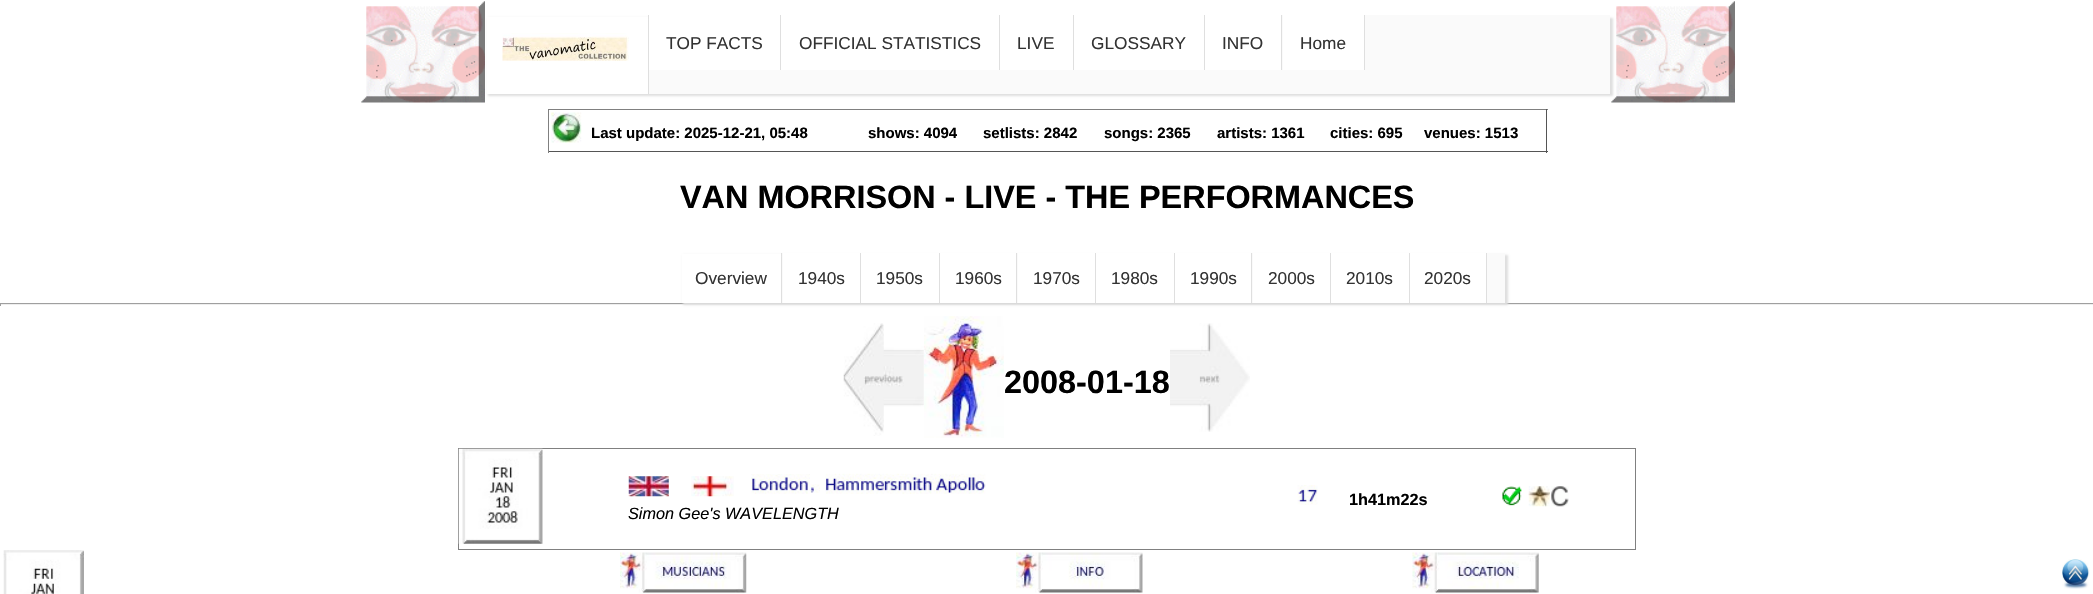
static SkFont makeFont(const char* family, int weight, float size, bool italic = false) {
  SkFontStyle style(weight, SkFontStyle::kNormal_Width,
    italic ? SkFontStyle::kItalic_Slant : SkFontStyle::kUpright_Slant);
  SkFont result(fontMgr->matchFamilyStyle(family, style), size);
  result.setSubpixel(true);
  return result;
}

static void text(SkCanvas* c, const char* s, float x, float y, const SkFont& font, SkColor color) {
  SkPaint ink(SkColor4f::FromColor(color));
  ink.setAntiAlias(true);
  c->drawString(s, x, y, font, ink);
}

static void box(SkCanvas* c, float l, float t, float r, float b, SkColor color) {
  SkPaint ink(SkColor4f::FromColor(color));
  ink.setAntiAlias(true);
  c->drawRect(SkRect::MakeLTRB(l, t, r, b), ink);
}

static void picture(SkCanvas* c, const char* path, float l, float t, float r, float b) {
  auto image = SkImages::DeferredFromEncodedData(SkData::MakeFromFileName(path));
  c->drawImageRect(image, SkRect::MakeLTRB(l, t, r, b), SkSamplingOptions());
}

void draw(SkCanvas* c) {
  SkPaint paint;
  paint.setAntiAlias(true);
  c->clear(0xffffffff);
  picture(c, "img_01.png", 361, 1, 485, 103);
  picture(c, "img_01.png", 1611, 1, 1735, 103);
  paint.setColor(0xffdfdfdf);
  paint.setMaskFilter(SkMaskFilter::MakeBlur(kNormal_SkBlurStyle, 1));
  c->drawRect(SkRect::MakeLTRB(488, 18, 1613, 96), paint);
  paint.setMaskFilter(nullptr);
  box(c, 649, 15, 1610, 94, 0xfffafafa);
  box(c, 648, 15, 649, 19, 0xffdfdfdf);
  box(c, 487, 17, 648, 94, 0xffffffff);
  picture(c, "img_02.png", 502, 33, 629, 61);
  box(c, 780, 15, 781, 70, 0xffdfdfdf);
  box(c, 649, 15, 780, 70, 0xffffffff);
  SkFont face1 = makeFont("Liberation Sans", 400, 17.25f);
  text(c, "TOP FACTS", 666, 49, face1, 0xff333333);
  box(c, 999, 15, 1000, 70, 0xffdfdfdf);
  box(c, 781, 15, 999, 70, 0xffffffff);
  text(c, "OFFICIAL STATISTICS", 799, 49, face1, 0xff333333);
  box(c, 1073, 15, 1074, 70, 0xffdfdfdf);
  box(c, 1000, 15, 1073, 70, 0xffffffff);
  text(c, "LIVE", 1017, 49, face1, 0xff333333);
  box(c, 1204, 15, 1205, 70, 0xffdfdfdf);
  box(c, 1074, 15, 1204, 70, 0xffffffff);
  text(c, "GLOSSARY", 1091, 49, face1, 0xff333333);
  box(c, 1281, 15, 1282, 70, 0xffdfdfdf);
  box(c, 1205, 15, 1281, 70, 0xffffffff);
  text(c, "INFO", 1222, 49, face1, 0xff333333);
  box(c, 1364, 15, 1365, 70, 0xffdfdfdf);
  box(c, 1283, 15, 1364, 70, 0xffffffff);
  text(c, "Home", 1300, 49, face1, 0xff333333);
  box(c, 548, 109, 1548, 110, 0xff808080);
  box(c, 1546, 109, 1547, 153, 0xff555555);
  box(c, 548, 151, 1548, 152, 0xff555555);
  box(c, 548, 109, 549, 153, 0xff808080);
  picture(c, "img_03.png", 551, 112, 582, 143);
  SkFont face2 = makeFont("Liberation Sans", 700, 15);
  text(c, "Last update: 2025-12-21, 05:48", 591, 138, face2, 0xff000000);
  text(c, "shows: 4094", 868, 138, face2, 0xff000000);
  text(c, "setlists: 2842", 983, 138, face2, 0xff000000);
  text(c, "songs: 2365", 1104, 138, face2, 0xff000000);
  text(c, "artists: 1361", 1217, 138, face2, 0xff000000);
  text(c, "cities: 695", 1330, 138, face2, 0xff000000);
  text(c, "venues: 1513", 1424, 138, face2, 0xff000000);
  SkFont face3 = makeFont("Liberation Sans", 700, 32.4f);
  text(c, "VAN MORRISON - LIVE - THE PERFORMANCES", 680, 208, face3, 0xff000000);
  box(c, 0, 303, 2093, 304, 0xff9f9f9f);
  box(c, 0, 304, 2093, 305, 0xffeeeeee);
  paint.setMaskFilter(SkMaskFilter::MakeBlur(kNormal_SkBlurStyle, 1));
  c->drawRect(SkRect::MakeLTRB(683, 255, 1508, 305), paint);
  paint.setMaskFilter(nullptr);
  box(c, 782, 253, 1505, 303, 0xfffafafa);
  box(c, 781, 253, 782, 256, 0xffdfdfdf);
  box(c, 682, 254, 781, 303, 0xffffffff);
  text(c, "Overview", 695, 284, face1, 0xff333333);
  box(c, 860, 253, 861, 303, 0xffdfdfdf);
  box(c, 783, 253, 860, 303, 0xffffffff);
  text(c, "1940s", 798, 284, face1, 0xff333333);
  box(c, 939, 253, 940, 303, 0xffdfdfdf);
  box(c, 861, 253, 939, 303, 0xffffffff);
  text(c, "1950s", 876, 284, face1, 0xff333333);
  box(c, 1016, 253, 1017, 303, 0xffdfdfdf);
  box(c, 940, 253, 1016, 303, 0xffffffff);
  text(c, "1960s", 955, 284, face1, 0xff333333);
  box(c, 1095, 253, 1096, 303, 0xffdfdfdf);
  box(c, 1018, 253, 1095, 303, 0xffffffff);
  text(c, "1970s", 1033, 284, face1, 0xff333333);
  box(c, 1174, 253, 1175, 303, 0xffdfdfdf);
  box(c, 1096, 253, 1174, 303, 0xffffffff);
  text(c, "1980s", 1111, 284, face1, 0xff333333);
  box(c, 1251, 253, 1252, 303, 0xffdfdfdf);
  box(c, 1175, 253, 1251, 303, 0xffffffff);
  text(c, "1990s", 1190, 284, face1, 0xff333333);
  box(c, 1330, 253, 1331, 303, 0xffdfdfdf);
  box(c, 1253, 253, 1330, 303, 0xffffffff);
  text(c, "2000s", 1268, 284, face1, 0xff333333);
  box(c, 1409, 253, 1410, 303, 0xffdfdfdf);
  box(c, 1331, 253, 1409, 303, 0xffffffff);
  text(c, "2010s", 1346, 284, face1, 0xff333333);
  box(c, 1486, 253, 1487, 303, 0xffdfdfdf);
  box(c, 1410, 253, 1486, 303, 0xffffffff);
  text(c, "2020s", 1424, 284, face1, 0xff333333);
  box(c, 0, 303, 1, 306, 0xff9f9f9f);
  picture(c, "img_04.png", 843, 323, 924, 436);
  picture(c, "img_05.png", 924, 316, 1004, 438);
  text(c, "2008-01-18", 1004, 393, face3, 0xff000000);
  picture(c, "img_06.png", 1170, 323, 1250, 432);
  box(c, 458, 448, 1636, 449, 0xff808080);
  box(c, 1635, 448, 1636, 550, 0xff808080);
  box(c, 458, 549, 1636, 550, 0xff808080);
  box(c, 458, 448, 459, 550, 0xff808080);
  picture(c, "img_07.png", 458, 448, 543, 544);
  picture(c, "img_08.png", 1297, 485, 1318, 505);
  SkFont face4 = makeFont("Liberation Sans", 700, 16.25f);
  text(c, "1h41m22s", 1349, 505, face4, 0xff000000);
  picture(c, "img_09.png", 1502, 486, 1522, 506);
  picture(c, "img_10.png", 1528, 486, 1550, 507);
  picture(c, "img_11.png", 1551, 486, 1569, 507);
  picture(c, "img_12.png", 628, 476, 669, 497);
  picture(c, "img_13.png", 691, 476, 734, 497);
  picture(c, "img_14.png", 751, 474, 810, 494);
  picture(c, "img_15.png", 810, 484, 820, 493);
  picture(c, "img_16.png", 825, 473, 986, 494);
  SkFont face5 = makeFont("Liberation Sans", 400, 16.25f, true);
  text(c, "Simon Gee's WAVELENGTH", 628, 519, face5, 0xff000000);
  picture(c, "img_17.png", 3, 550, 84, 594);
  picture(c, "img_18.png", 620, 552, 747, 593);
  picture(c, "img_19.png", 1016, 552, 1143, 593);
  picture(c, "img_20.png", 1412, 552, 1539, 593);
  picture(c, "img_21.png", 2062, 559, 2090, 589);
}
